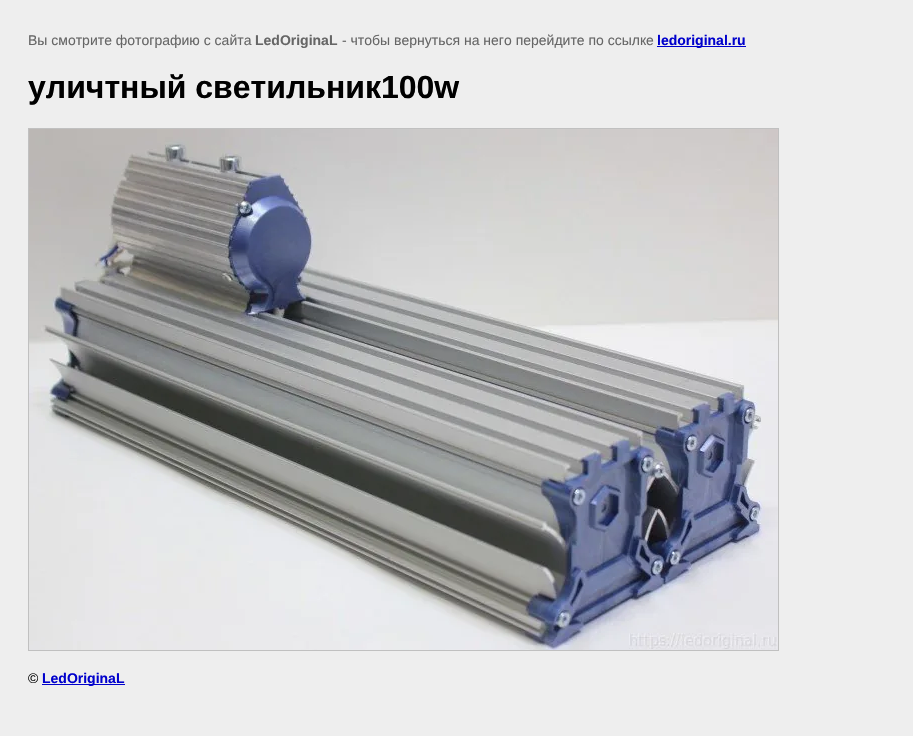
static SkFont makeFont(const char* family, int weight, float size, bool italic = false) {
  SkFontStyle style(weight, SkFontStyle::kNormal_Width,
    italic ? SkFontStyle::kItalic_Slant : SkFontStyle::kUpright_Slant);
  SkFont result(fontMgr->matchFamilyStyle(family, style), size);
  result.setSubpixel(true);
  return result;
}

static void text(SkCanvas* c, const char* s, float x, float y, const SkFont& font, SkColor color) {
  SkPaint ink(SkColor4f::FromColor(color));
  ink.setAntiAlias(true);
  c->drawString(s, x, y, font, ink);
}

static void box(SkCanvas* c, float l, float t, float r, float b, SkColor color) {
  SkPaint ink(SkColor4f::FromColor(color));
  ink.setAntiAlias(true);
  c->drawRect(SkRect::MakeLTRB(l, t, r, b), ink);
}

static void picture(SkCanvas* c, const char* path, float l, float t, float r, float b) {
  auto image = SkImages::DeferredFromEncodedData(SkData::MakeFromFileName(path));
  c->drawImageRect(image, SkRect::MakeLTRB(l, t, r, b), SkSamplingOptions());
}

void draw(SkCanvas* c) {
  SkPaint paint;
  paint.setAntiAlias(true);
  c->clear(0xffeeeeee);
  SkFont face1 = makeFont("Liberation Sans", 400, 14);
  text(c, "Вы смотрите фотографию с сайта", 28, 45, face1, 0xff666666);
  SkFont face2 = makeFont("Liberation Sans", 700, 14);
  text(c, "LedOriginaL", 255, 45, face2, 0xff666666);
  text(c, "- чтобы вернуться на него перейдите по ссылке", 342, 45, face1, 0xff666666);
  box(c, 657, 46, 746, 47, 0xff0000cc);
  text(c, "ledoriginal.ru", 657, 45, face2, 0xff0000cc);
  SkFont face3 = makeFont("Liberation Sans", 700, 32);
  text(c, "уличтный светильник100w", 28, 98, face3, 0xff000000);
  paint.setStyle(SkPaint::kStroke_Style);
  paint.setStrokeWidth(1);
  paint.setColor(0xffc0c0c0);
  c->drawRect(SkRect::MakeLTRB(28.5f, 128.5f, 778.5f, 650.5f), paint);
  picture(c, "img_01.png", 29, 129, 778, 650);
  text(c, "©", 28, 683, face1, 0xff000000);
  box(c, 42, 684, 125, 685, 0xff0000cc);
  text(c, "LedOriginaL", 42, 683, face2, 0xff0000cc);
}
